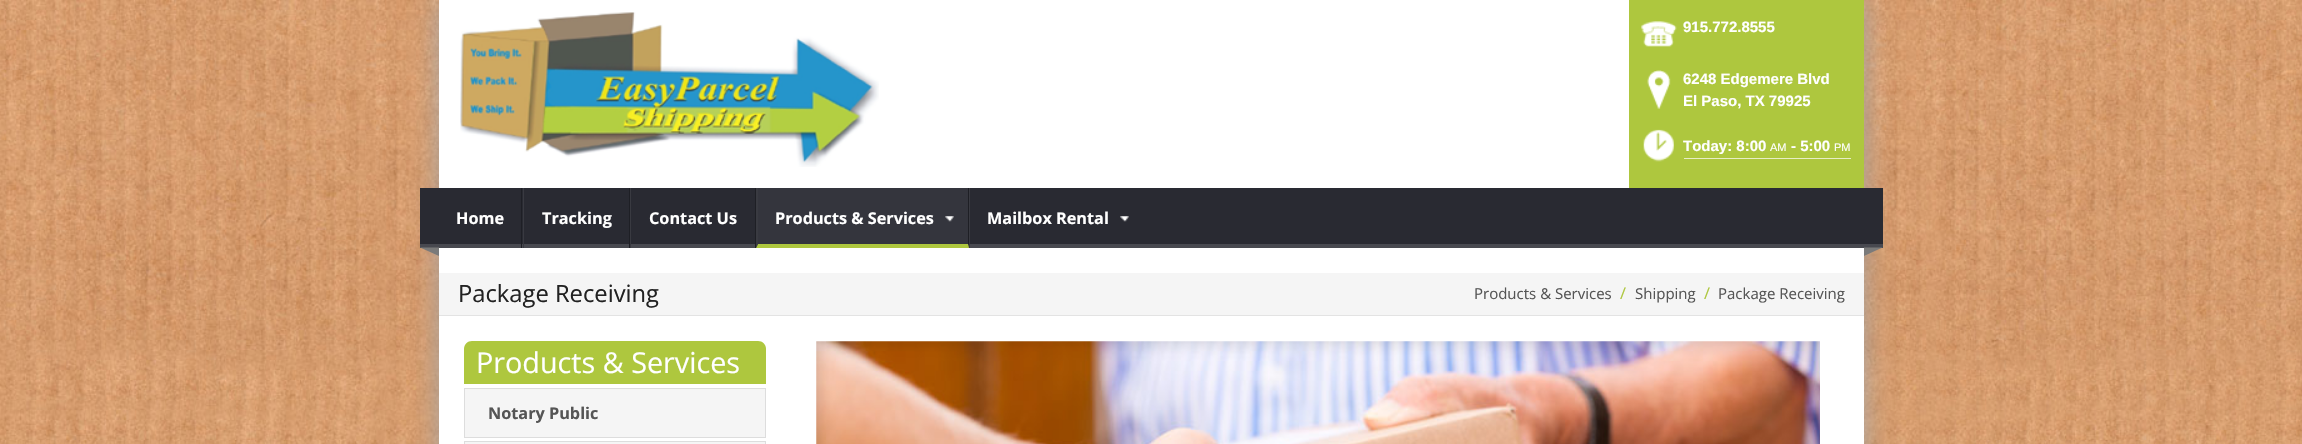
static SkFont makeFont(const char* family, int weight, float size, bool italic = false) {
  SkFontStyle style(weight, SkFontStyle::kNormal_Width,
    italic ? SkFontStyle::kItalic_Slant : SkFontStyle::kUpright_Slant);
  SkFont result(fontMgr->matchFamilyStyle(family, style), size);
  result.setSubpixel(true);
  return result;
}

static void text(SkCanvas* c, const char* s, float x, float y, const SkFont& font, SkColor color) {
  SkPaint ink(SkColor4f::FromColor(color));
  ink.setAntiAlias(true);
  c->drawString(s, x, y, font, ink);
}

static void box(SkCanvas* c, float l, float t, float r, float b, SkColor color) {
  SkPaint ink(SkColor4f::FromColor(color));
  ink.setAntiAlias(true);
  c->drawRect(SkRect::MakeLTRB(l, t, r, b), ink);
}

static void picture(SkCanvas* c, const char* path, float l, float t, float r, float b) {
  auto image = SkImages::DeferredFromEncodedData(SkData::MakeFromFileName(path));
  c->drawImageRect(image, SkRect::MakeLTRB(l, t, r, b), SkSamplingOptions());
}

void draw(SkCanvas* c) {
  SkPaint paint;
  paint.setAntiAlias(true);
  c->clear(0xffffffff);
  picture(c, "img_01.png", 0, 0, 2302, 444);
  paint.setColor(0xffa3a3a3);
  paint.setMaskFilter(SkMaskFilter::MakeBlur(kNormal_SkBlurStyle, 12.5f));
  c->drawRect(SkRect::MakeLTRB(439, 0, 1864, 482), paint);
  paint.setMaskFilter(nullptr);
  box(c, 439, 0, 1864, 444, 0xffffffff);
  picture(c, "img_02.png", 460, 12, 879, 167);
  box(c, 1629, 0, 1864, 188, 0xffaec73e);
  picture(c, "img_03.png", 1641, 21, 1677, 47);
  SkFont face1 = makeFont("Liberation Sans", 700, 15);
  text(c, "915.772.8555", 1683, 32, face1, 0xffffffff);
  picture(c, "img_04.png", 1647, 70, 1671, 109);
  text(c, "6248 Edgemere Blvd", 1683, 84, face1, 0xffffffff);
  text(c, "El Paso, TX 79925", 1683, 106, face1, 0xffffffff);
  picture(c, "img_05.png", 1643, 129, 1674, 162);
  box(c, 1684, 158, 1851, 159, 0xffe7eec5);
  text(c, "Today: 8:00", 1683, 151, face1, 0xffffffff);
  SkFont face2 = makeFont("Liberation Sans", 400, 11);
  text(c, "AM", 1770, 151, face2, 0xffffffff);
  text(c, "- 5:00", 1791, 151, face1, 0xffffffff);
  text(c, "PM", 1834, 151, face2, 0xffffffff);
  box(c, 420, 188, 1883, 244, 0xff292a32);
  box(c, 420, 244, 1883, 248, 0xff484950);
  box(c, 521, 188, 522, 248, 0xff1e1f25);
  SkFont face3 = makeFont("Open Sans", 700, 16.25f);
  text(c, "Home", 456, 224, face3, 0xffffffff);
  box(c, 629, 188, 630, 248, 0xff1e1f25);
  box(c, 523, 188, 524, 248, 0xff393a41);
  text(c, "Tracking", 542, 224, face3, 0xffffffff);
  box(c, 755, 188, 756, 248, 0xff1e1f25);
  box(c, 630, 188, 631, 248, 0xff393a41);
  text(c, "Contact Us", 649, 224, face3, 0xffffffff);
  box(c, 756, 188, 969, 248, 0x0dffffff);
  paint.setColor(0xff1e1f25);
  c->drawPath(SkPathBuilder().moveTo(969, 188).lineTo(969, 248).lineTo(968, 244).lineTo(968, 188).close().detach(), paint);
  paint.setColor(0xffaec73e);
  c->drawPath(SkPathBuilder().moveTo(969, 248).lineTo(756, 248).lineTo(758, 244).lineTo(968, 244).close().detach(), paint);
  paint.setColor(0xff393a41);
  c->drawPath(SkPathBuilder().moveTo(756, 248).lineTo(756, 188).lineTo(758, 188).lineTo(758, 244).close().detach(), paint);
  text(c, "Products & Services", 775, 224, face3, 0xffffffff);
  picture(c, "img_06.png", 945, 216, 954, 222);
  box(c, 969, 188, 970, 248, 0xff393a41);
  text(c, "Mailbox Rental", 987, 224, face3, 0xffffffff);
  picture(c, "img_07.png", 1120, 216, 1129, 222);
  paint.setColor(0xff7a7a7a);
  c->drawPath(SkPathBuilder().moveTo(439, 247.5f).lineTo(439, 256).lineTo(420, 247.5f).close().detach(), paint);
  c->drawPath(SkPathBuilder().moveTo(1864, 247.5f).lineTo(1882.5f, 247.5f).lineTo(1864, 256).close().detach(), paint);
  box(c, 439, 273, 1864, 315, 0xfff5f5f5);
  box(c, 439, 315, 1864, 316, 0xffe3e3e3);
  SkFont face4 = makeFont("Open Sans", 400, 23.75f);
  text(c, "Package Receiving", 458, 302, face4, 0xff222222);
  SkFont face5 = makeFont("Open Sans", 400, 15);
  text(c, "Products & Services", 1474, 299, face5, 0xff555555);
  SkFont face6 = makeFont("Open Sans", 400, 16.25f);
  text(c, "/", 1620, 299, face6, 0xffaec73e);
  text(c, "Shipping", 1635, 299, face5, 0xff555555);
  text(c, "/", 1704, 299, face6, 0xffaec73e);
  text(c, "Package Receiving", 1718, 299, face5, 0xff555555);
  paint.setColor(0xffaec73e);
  c->drawPath(SkPathBuilder().moveTo(472, 341).lineTo(758, 341).cubicTo(762.5f, 341, 766, 344.5f, 766, 349).lineTo(766, 384).lineTo(464, 384).lineTo(464, 349).cubicTo(464, 344.5f, 467.5f, 341, 472, 341).close().detach(), paint);
  SkFont face7 = makeFont("Open Sans", 400, 28.75f);
  text(c, "Products & Services", 476, 373, face7, 0xffffffff);
  paint.setColor(0xfff5f5f5);
  c->drawRect(SkRect::MakeLTRB(464.5f, 388.5f, 765.5f, 437.5f), paint);
  paint.setStyle(SkPaint::kStroke_Style);
  paint.setStrokeWidth(1);
  paint.setColor(0xffdddddd);
  c->drawRect(SkRect::MakeLTRB(464.5f, 388.5f, 765.5f, 437.5f), paint);
  text(c, "Notary Public", 488, 419, face3, 0xff555555);
  paint.setStyle(SkPaint::kFill_Style);
  paint.setColor(0xfff5f5f5);
  c->drawRect(SkRect::MakeLTRB(464.5f, 441.5f, 765.5f, 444.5f), paint);
  paint.setStyle(SkPaint::kStroke_Style);
  paint.setColor(0xffdddddd);
  c->drawRect(SkRect::MakeLTRB(464.5f, 441.5f, 765.5f, 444.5f), paint);
  picture(c, "img_08.png", 816, 341, 1820, 444);
}
